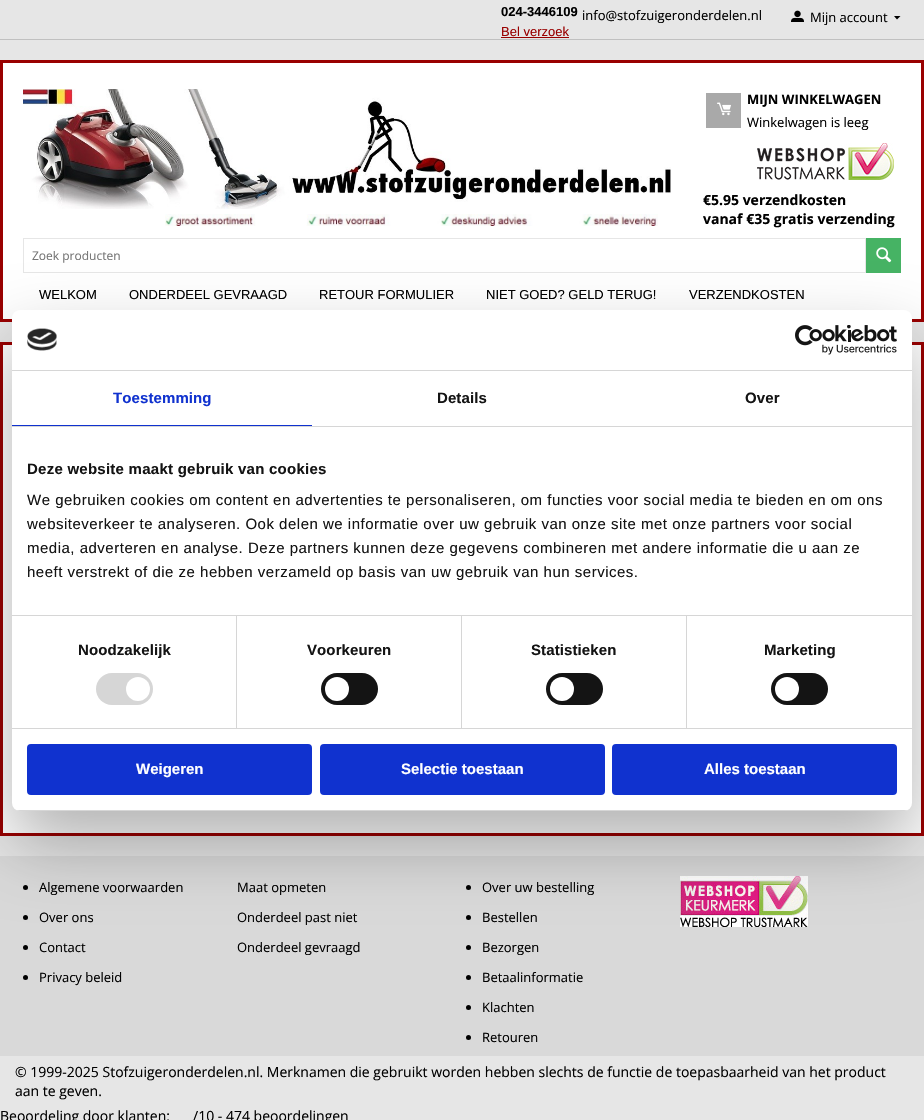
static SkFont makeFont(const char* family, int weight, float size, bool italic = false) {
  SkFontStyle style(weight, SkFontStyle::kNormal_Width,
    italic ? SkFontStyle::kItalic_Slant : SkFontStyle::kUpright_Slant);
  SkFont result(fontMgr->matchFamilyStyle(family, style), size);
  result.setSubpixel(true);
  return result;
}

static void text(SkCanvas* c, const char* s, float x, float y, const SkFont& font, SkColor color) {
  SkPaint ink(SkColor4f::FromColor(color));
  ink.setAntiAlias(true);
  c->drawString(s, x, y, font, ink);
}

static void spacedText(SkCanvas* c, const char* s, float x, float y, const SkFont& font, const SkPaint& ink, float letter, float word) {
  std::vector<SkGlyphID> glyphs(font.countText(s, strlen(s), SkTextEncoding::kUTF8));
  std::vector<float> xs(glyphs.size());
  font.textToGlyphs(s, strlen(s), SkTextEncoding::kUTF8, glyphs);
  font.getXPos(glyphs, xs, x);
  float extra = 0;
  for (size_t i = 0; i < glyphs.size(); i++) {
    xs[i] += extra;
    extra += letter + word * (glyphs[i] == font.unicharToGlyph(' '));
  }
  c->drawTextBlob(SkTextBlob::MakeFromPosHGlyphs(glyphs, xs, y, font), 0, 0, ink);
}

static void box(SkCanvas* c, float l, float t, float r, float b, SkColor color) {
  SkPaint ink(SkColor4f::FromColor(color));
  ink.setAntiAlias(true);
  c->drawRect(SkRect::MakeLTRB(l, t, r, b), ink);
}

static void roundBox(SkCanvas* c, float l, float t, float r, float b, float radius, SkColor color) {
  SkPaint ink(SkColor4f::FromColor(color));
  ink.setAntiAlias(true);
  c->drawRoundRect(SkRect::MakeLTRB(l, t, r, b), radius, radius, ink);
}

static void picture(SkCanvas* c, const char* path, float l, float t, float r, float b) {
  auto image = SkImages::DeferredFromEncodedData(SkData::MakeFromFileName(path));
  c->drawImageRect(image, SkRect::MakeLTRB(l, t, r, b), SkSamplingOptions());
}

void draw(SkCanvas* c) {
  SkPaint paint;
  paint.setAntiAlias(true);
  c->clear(0xffe6e6e6);
  box(c, 0, 39, 924, 40, 0xffc0c0c0);
  SkFont face1 = makeFont("Liberation Sans", 700, 13);
  text(c, "024-3446109", 501, 16, face1, 0xff000000);
  SkFont face2 = makeFont("Liberation Sans", 400, 13);
  text(c, "Bel verzoek", 501, 36, face2, 0xff990000);
  box(c, 501, 37, 569, 38, 0xff990000);
  SkFont face3 = makeFont("Open Sans", 400, 13);
  text(c, "info@stofzuigeronderdelen.nl", 582, 20, face3, 0xff000000);
  picture(c, "img_01.png", 791, 10, 804, 22);
  text(c, "Mijn account", 810, 22, face3, 0xff000000);
  paint.setColor(0xff000000);
  c->drawPath(SkPathBuilder().moveTo(897, 19.5f).lineTo(894, 16).lineTo(900.5f, 16).close().detach(), paint);
  paint.setColor(0xffffffff);
  c->drawRect(SkRect::MakeLTRB(1.5f, 61.5f, 922.5f, 320.5f), paint);
  paint.setStyle(SkPaint::kStroke_Style);
  paint.setStrokeWidth(3);
  paint.setColor(0xff990000);
  c->drawRect(SkRect::MakeLTRB(1.5f, 61.5f, 922.5f, 320.5f), paint);
  picture(c, "img_02.png", 23, 89, 671, 209);
  picture(c, "img_03.png", 165, 214, 658, 226);
  box(c, 706, 93, 741, 128, 0xffa9a9a9);
  picture(c, "img_04.png", 717, 102, 731, 116);
  SkFont face4 = makeFont("Open Sans", 700, 13);
  text(c, "MIJN WINKELWAGEN", 747, 104, face4, 0xff000000);
  text(c, "Winkelwagen is leeg", 747, 127, face3, 0xff000000);
  picture(c, "img_05.png", 757, 143, 894, 180);
  SkFont face5 = makeFont("Open Sans", 700, 14);
  text(c, "€5.95 verzendkosten", 703, 205, face5, 0xff000000);
  text(c, "vanaf €35 gratis verzending", 703, 224, face5, 0xff000000);
  paint.setStrokeWidth(1);
  paint.setColor(0xffe6e6e6);
  c->drawRect(SkRect::MakeLTRB(23.5f, 238.5f, 865.5f, 272.5f), paint);
  SkFont face6 = makeFont("Open Sans", 400, 12);
  text(c, "Zoek producten", 32, 260, face6, 0xff757575);
  box(c, 866, 238, 901, 273, 0xff46b364);
  picture(c, "img_06.png", 876, 247, 892, 263);
  text(c, "WELKOM", 39, 299, face2, 0xff000000);
  text(c, "ONDERDEEL GEVRAAGD", 129, 299, face2, 0xff000000);
  text(c, "RETOUR FORMULIER", 319, 299, face2, 0xff000000);
  text(c, "NIET GOED? GELD TERUG!", 486, 299, face2, 0xff000000);
  text(c, "VERZENDKOSTEN", 689, 299, face2, 0xff000000);
  paint.setStyle(SkPaint::kFill_Style);
  paint.setColor(0xffffffff);
  c->drawRect(SkRect::MakeLTRB(1.5f, 343.5f, 922.5f, 834.5f), paint);
  paint.setStyle(SkPaint::kStroke_Style);
  paint.setStrokeWidth(3);
  paint.setColor(0xff990000);
  c->drawRect(SkRect::MakeLTRB(1.5f, 343.5f, 922.5f, 834.5f), paint);
  box(c, 0, 856, 924, 1056, 0xffd9d9d9);
  paint.setStyle(SkPaint::kFill_Style);
  paint.setColor(0xff000000);
  c->drawCircle(25.5f, 887.5f, 2.5f, paint);
  text(c, "Algemene voorwaarden", 39, 892, face3, 0xff000000);
  c->drawCircle(25.5f, 917.5f, 2.5f, paint);
  text(c, "Over ons", 39, 922, face3, 0xff000000);
  c->drawCircle(25.5f, 947.5f, 2.5f, paint);
  text(c, "Contact", 39, 952, face3, 0xff000000);
  c->drawCircle(25.5f, 977.5f, 2.5f, paint);
  text(c, "Privacy beleid", 39, 982, face3, 0xff000000);
  text(c, "Maat opmeten", 237, 892, face3, 0xff000000);
  text(c, "Onderdeel past niet", 237, 922, face3, 0xff000000);
  text(c, "Onderdeel gevraagd", 237, 952, face3, 0xff000000);
  c->drawCircle(468.5f, 887.5f, 2.5f, paint);
  text(c, "Over uw bestelling", 482, 892, face3, 0xff000000);
  c->drawCircle(468.5f, 917.5f, 2.5f, paint);
  text(c, "Bestellen", 482, 922, face3, 0xff000000);
  c->drawCircle(468.5f, 947.5f, 2.5f, paint);
  text(c, "Bezorgen", 482, 952, face3, 0xff000000);
  c->drawCircle(468.5f, 977.5f, 2.5f, paint);
  text(c, "Betaalinformatie", 482, 982, face3, 0xff000000);
  c->drawCircle(468.5f, 1007.5f, 2.5f, paint);
  text(c, "Klachten", 482, 1012, face3, 0xff000000);
  c->drawCircle(468.5f, 1037.5f, 2.5f, paint);
  text(c, "Retouren", 482, 1042, face3, 0xff000000);
  picture(c, "img_07.png", 680, 876, 808, 927);
  SkFont face7 = makeFont("Open Sans", 400, 14);
  text(c, "© 1999-2025 Stofzuigeronderdelen.nl. Merknamen die gebruikt worden hebben slechts de functie de toepasbaarheid van het product", 15, 1077, face7, 0xff000000);
  text(c, "aan te geven.", 15, 1096, face7, 0xff000000);
  text(c, "Beoordeling door klanten:", 0, 1121, face7, 0xff000000);
  text(c, "/10 - 474 beoordelingen", 193, 1121, face7, 0xff000000);
  paint.setColor(0x4d000000);
  paint.setMaskFilter(SkMaskFilter::MakeBlur(kNormal_SkBlurStyle, 34));
  c->drawRoundRect(SkRect::MakeLTRB(12, 342, 912, 843), 8, 8, paint);
  paint.setMaskFilter(nullptr);
  roundBox(c, 12, 310, 912, 811, 8, 0xffffffff);
  box(c, 12, 370, 912, 371, 0xffd6d6d6);
  picture(c, "img_08.png", 27, 328, 57, 351);
  picture(c, "img_09.png", 795, 325, 897, 355);
  box(c, 12, 426, 912, 427, 0xffd6d6d6);
  box(c, 12, 425, 312, 426, 0xff1032cf);
  SkFont face8 = makeFont("Liberation Sans", 700, 15);
  paint.setColor(0xff1032cf);
  spacedText(c, "Toestemming", 113, 403, face8, paint, 0.1f, 0);
  paint.setColor(0xff141414);
  spacedText(c, "Details", 437, 403, face8, paint, 0.1f, 0);
  spacedText(c, "Over", 745, 403, face8, paint, 0.1f, 0);
  box(c, 12, 615, 912, 616, 0xffd6d6d6);
  spacedText(c, "Deze website maakt gebruik van cookies", 27, 474, face8, paint, 0.25f, 0);
  SkFont face9 = makeFont("Liberation Sans", 400, 15);
  spacedText(c, "We gebruiken cookies om content en advertenties te personaliseren, om functies voor social media te bieden en om ons", 27, 505, face9, paint, 0.5f, 0);
  spacedText(c, "websiteverkeer te analyseren. Ook delen we informatie over uw gebruik van onze site met onze partners voor social", 27, 529, face9, paint, 0.5f, 0);
  spacedText(c, "media, adverteren en analyse. Deze partners kunnen deze gegevens combineren met andere informatie die u aan ze", 27, 553, face9, paint, 0.5f, 0);
  spacedText(c, "heeft verstrekt of die ze hebben verzameld op basis van uw gebruik van hun services.", 27, 577, face9, paint, 0.5f, 0);
  box(c, 12, 728, 912, 729, 0xffd6d6d6);
  box(c, 236, 616, 237, 728, 0xffd6d6d6);
  spacedText(c, "Noodzakelijk", 78, 655, face8, paint, 0.1f, 0);
  roundBox(c, 96, 673, 153, 705, 16, 0xffd6d6d6);
  paint.setColor(0xffffffff);
  c->drawCircle(138, 689, 12, paint);
  box(c, 461, 616, 462, 728, 0xffd6d6d6);
  paint.setColor(0xff141414);
  spacedText(c, "Voorkeuren", 307, 655, face8, paint, 0.1f, 0);
  roundBox(c, 321, 673, 378, 705, 16, 0xff141414);
  paint.setColor(0xffffffff);
  c->drawCircle(337, 689, 12, paint);
  box(c, 686, 616, 687, 728, 0xffd6d6d6);
  paint.setColor(0xff141414);
  spacedText(c, "Statistieken", 531, 655, face8, paint, 0.1f, 0);
  roundBox(c, 546, 673, 603, 705, 16, 0xff141414);
  paint.setColor(0xffffffff);
  c->drawCircle(562, 689, 12, paint);
  paint.setColor(0xff141414);
  spacedText(c, "Marketing", 764, 655, face8, paint, 0.1f, 0);
  roundBox(c, 771, 673, 828, 705, 16, 0xff141414);
  paint.setColor(0xffffffff);
  c->drawCircle(787, 689, 12, paint);
  c->save();
  c->clipPath(SkPathBuilder().moveTo(20, 310).lineTo(904, 310).cubicTo(908.5f, 310, 912, 313.5f, 912, 318).lineTo(912, 803).cubicTo(912, 807.5f, 908.5f, 811, 904, 811).lineTo(20, 811).cubicTo(15.5f, 811, 12, 807.5f, 12, 803).lineTo(12, 318).cubicTo(12, 313.5f, 15.5f, 310, 20, 310).close().detach(), true);
  box(c, 12, 810, 912, 811, 0xffd6d6d6);
  c->restore();
  paint.setColor(0xff1032cf);
  c->drawRoundRect(SkRect::MakeLTRB(28, 745, 311, 794), 3, 3, paint);
  paint.setStyle(SkPaint::kStroke_Style);
  paint.setStrokeWidth(2);
  c->drawRoundRect(SkRect::MakeLTRB(28, 745, 311, 794), 3, 3, paint);
  text(c, "Weigeren", 136, 774, face8, 0xffffffff);
  paint.setStyle(SkPaint::kFill_Style);
  c->drawRoundRect(SkRect::MakeLTRB(321, 745, 604, 794), 3, 3, paint);
  paint.setStyle(SkPaint::kStroke_Style);
  c->drawRoundRect(SkRect::MakeLTRB(321, 745, 604, 794), 3, 3, paint);
  text(c, "Selectie toestaan", 401, 774, face8, 0xffffffff);
  paint.setStyle(SkPaint::kFill_Style);
  c->drawRoundRect(SkRect::MakeLTRB(613, 745, 896, 794), 3, 3, paint);
  paint.setStyle(SkPaint::kStroke_Style);
  c->drawRoundRect(SkRect::MakeLTRB(613, 745, 896, 794), 3, 3, paint);
  text(c, "Alles toestaan", 704, 774, face8, 0xffffffff);
}
